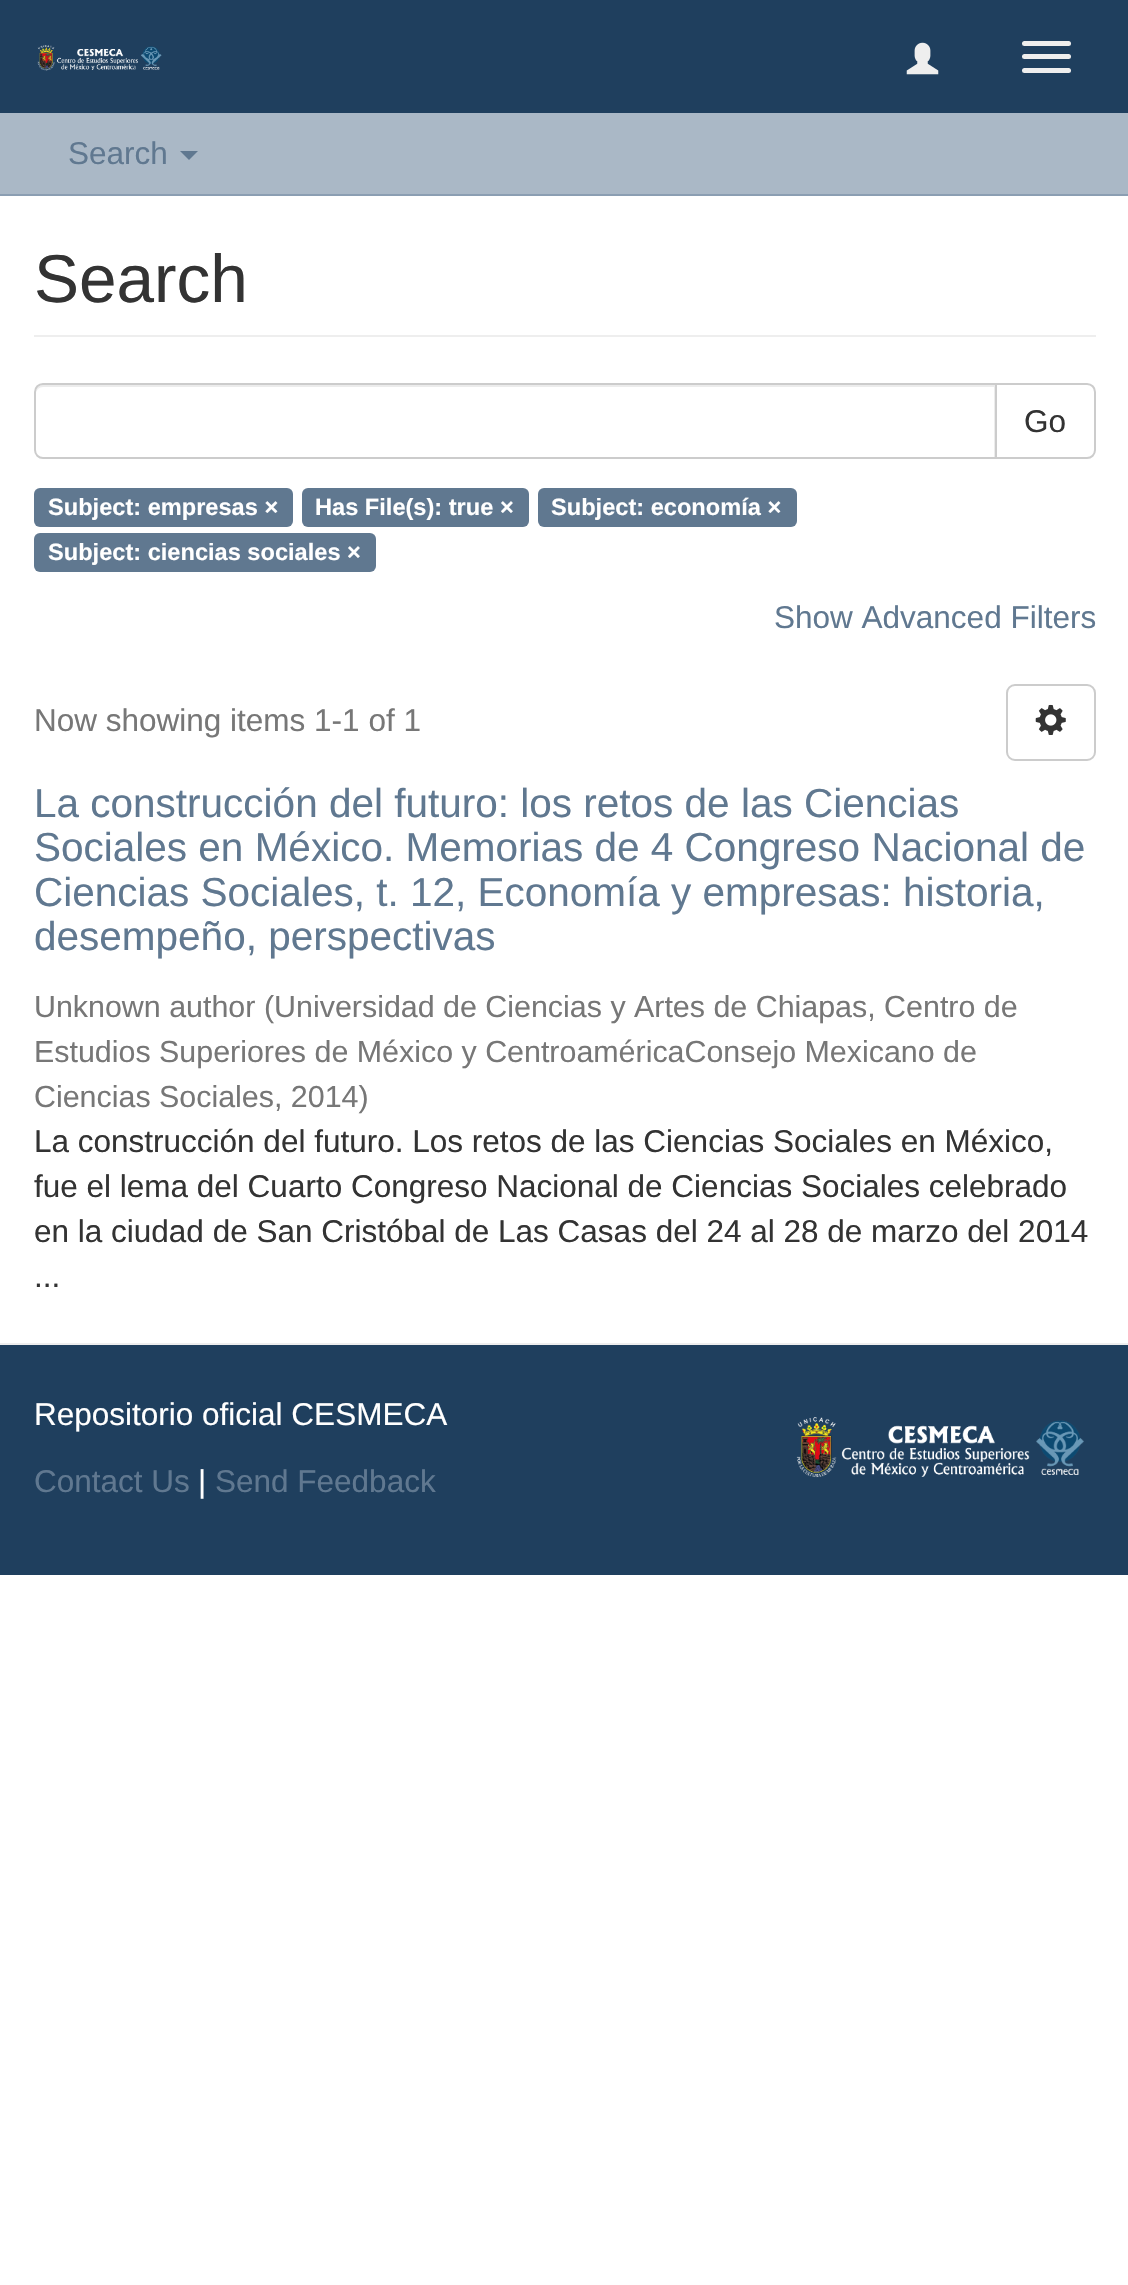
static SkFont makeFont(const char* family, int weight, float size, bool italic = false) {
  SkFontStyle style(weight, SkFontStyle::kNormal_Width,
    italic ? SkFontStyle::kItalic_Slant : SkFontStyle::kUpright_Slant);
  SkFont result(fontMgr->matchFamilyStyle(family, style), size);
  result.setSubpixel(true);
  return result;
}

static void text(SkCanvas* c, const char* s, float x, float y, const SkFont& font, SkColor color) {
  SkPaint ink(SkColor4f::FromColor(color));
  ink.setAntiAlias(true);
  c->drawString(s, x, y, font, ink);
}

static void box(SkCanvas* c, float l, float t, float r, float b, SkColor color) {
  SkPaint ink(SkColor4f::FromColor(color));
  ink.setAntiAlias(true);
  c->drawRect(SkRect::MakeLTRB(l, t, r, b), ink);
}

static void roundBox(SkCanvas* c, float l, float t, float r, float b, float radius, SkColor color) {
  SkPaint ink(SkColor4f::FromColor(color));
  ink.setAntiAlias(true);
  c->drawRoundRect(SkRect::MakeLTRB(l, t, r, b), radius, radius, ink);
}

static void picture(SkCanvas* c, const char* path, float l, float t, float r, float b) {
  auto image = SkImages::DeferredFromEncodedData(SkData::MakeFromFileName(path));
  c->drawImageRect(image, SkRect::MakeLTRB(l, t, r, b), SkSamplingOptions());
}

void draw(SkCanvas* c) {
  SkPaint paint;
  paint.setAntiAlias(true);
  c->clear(0xffffffff);
  box(c, 0, 0, 1128, 113, 0xff1f3f5e);
  picture(c, "img_01.png", 37, 45, 162, 71);
  picture(c, "img_02.png", 906, 42, 939, 75);
  roundBox(c, 1022, 41, 1071, 46, 2.5f, 0xffeeeeee);
  roundBox(c, 1022, 54, 1071, 59, 2.5f, 0xffeeeeee);
  roundBox(c, 1022, 68, 1071, 73, 2.5f, 0xffeeeeee);
  box(c, 0, 113, 1128, 194, 0xffaab8c6);
  box(c, 0, 194, 1128, 196, 0xff8b9eb2);
  SkFont face1 = makeFont("Liberation Sans", 400, 31.5f);
  text(c, "Search", 68, 164, face1, 0xff607890);
  paint.setColor(0xff607890);
  c->drawPath(SkPathBuilder().moveTo(180, 151).lineTo(198, 151).lineTo(189, 160).close().detach(), paint);
  box(c, 34, 335, 1096, 337, 0xffeeeeee);
  SkFont face2 = makeFont("Liberation Sans", 400, 67.5f);
  text(c, "Search", 34, 302, face2, 0xff333333);
  paint.setStyle(SkPaint::kStroke_Style);
  paint.setStrokeWidth(2);
  paint.setColor(0xffcccccc);
  c->drawPath(SkPathBuilder().moveTo(996, 384).lineTo(1087, 384).cubicTo(1091.5f, 384, 1095, 387.5f, 1095, 392).lineTo(1095, 450).cubicTo(1095, 454.5f, 1091.5f, 458, 1087, 458).lineTo(996, 458).close().detach(), paint);
  paint.setStyle(SkPaint::kFill_Style);
  paint.setColor(0xffffffff);
  c->drawPath(SkPathBuilder().moveTo(43, 383).lineTo(997, 383).lineTo(997, 459).lineTo(43, 459).cubicTo(38, 459, 34, 455, 34, 450).lineTo(34, 392).cubicTo(34, 387, 38, 383, 43, 383).close().detach(), paint);
  paint.setColor(0xffececec);
  c->drawPath(SkPathBuilder().moveTo(43, 387).lineTo(994, 387).lineTo(994, 457).lineTo(995, 457).lineTo(995, 385).lineTo(43, 385).cubicTo(38, 385, 36, 390, 36, 394).cubicTo(36, 390, 39, 387, 43, 387).close().detach(), paint);
  paint.setStyle(SkPaint::kStroke_Style);
  paint.setColor(0xffcccccc);
  c->drawPath(SkPathBuilder().moveTo(43, 384).lineTo(996, 384).lineTo(996, 458).lineTo(43, 458).cubicTo(38.5f, 458, 35, 454.5f, 35, 450).lineTo(35, 392).cubicTo(35, 387.5f, 38.5f, 384, 43, 384).close().detach(), paint);
  text(c, "Go", 1024, 432, face1, 0xff333333);
  roundBox(c, 34, 488, 293, 527, 6, 0xff607890);
  SkFont face3 = makeFont("Liberation Sans", 700, 23.6f);
  text(c, "Subject: empresas ×", 48, 515, face3, 0xffffffff);
  roundBox(c, 302, 488, 529, 527, 6, 0xff607890);
  text(c, "Has File(s): true ×", 315, 515, face3, 0xffffffff);
  roundBox(c, 538, 488, 797, 527, 6, 0xff607890);
  text(c, "Subject: economía ×", 551, 515, face3, 0xffffffff);
  roundBox(c, 34, 533, 376, 572, 6, 0xff607890);
  text(c, "Subject: ciencias sociales ×", 48, 560, face3, 0xffffffff);
  text(c, "Show Advanced Filters", 774, 628, face1, 0xff607890);
  text(c, "Now showing items 1-1 of 1", 34, 731, face1, 0xff777777);
  c->drawRoundRect(SkRect::MakeLTRB(1007, 685, 1095, 760), 8, 8, paint);
  picture(c, "img_03.png", 1035, 704, 1066, 735);
  SkFont face4 = makeFont("Liberation Sans", 400, 40.5f);
  text(c, "La construcción del futuro: los retos de las Ciencias", 34, 817, face4, 0xff607890);
  text(c, "Sociales en México. Memorias de 4 Congreso Nacional de", 34, 861, face4, 0xff607890);
  text(c, "Ciencias Sociales, t. 12, Economía y empresas: historia,", 34, 906, face4, 0xff607890);
  text(c, "desempeño, perspectivas", 34, 950, face4, 0xff607890);
  SkFont face5 = makeFont("Liberation Sans", 400, 30.4f);
  text(c, "Unknown author", 34, 1017, face5, 0xff777777);
  text(c, "(Universidad de Ciencias y Artes de Chiapas, Centro de", 264, 1017, face5, 0xff777777);
  text(c, "Estudios Superiores de México y CentroaméricaConsejo Mexicano de", 34, 1062, face5, 0xff777777);
  text(c, "Ciencias Sociales, 2014)", 34, 1107, face5, 0xff777777);
  text(c, "La construcción del futuro. Los retos de las Ciencias Sociales en México,", 34, 1152, face1, 0xff333333);
  text(c, "fue el lema del Cuarto Congreso Nacional de Ciencias Sociales celebrado", 34, 1197, face1, 0xff333333);
  text(c, "en la ciudad de San Cristóbal de Las Casas del 24 al 28 de marzo del 2014", 34, 1242, face1, 0xff333333);
  text(c, "...", 34, 1287, face1, 0xff333333);
  box(c, 0, 1345, 1128, 1575, 0xff1f3f5e);
  box(c, 0, 1343, 1128, 1345, 0xffeeeeee);
  text(c, "Repositorio oficial CESMECA", 34, 1425, face1, 0xffffffff);
  text(c, "Contact Us", 34, 1492, face1, 0xff607890);
  text(c, "|", 198, 1492, face1, 0xffffffff);
  text(c, "Send Feedback", 215, 1492, face1, 0xff607890);
  picture(c, "img_04.png", 796, 1417, 1084, 1478);
}
